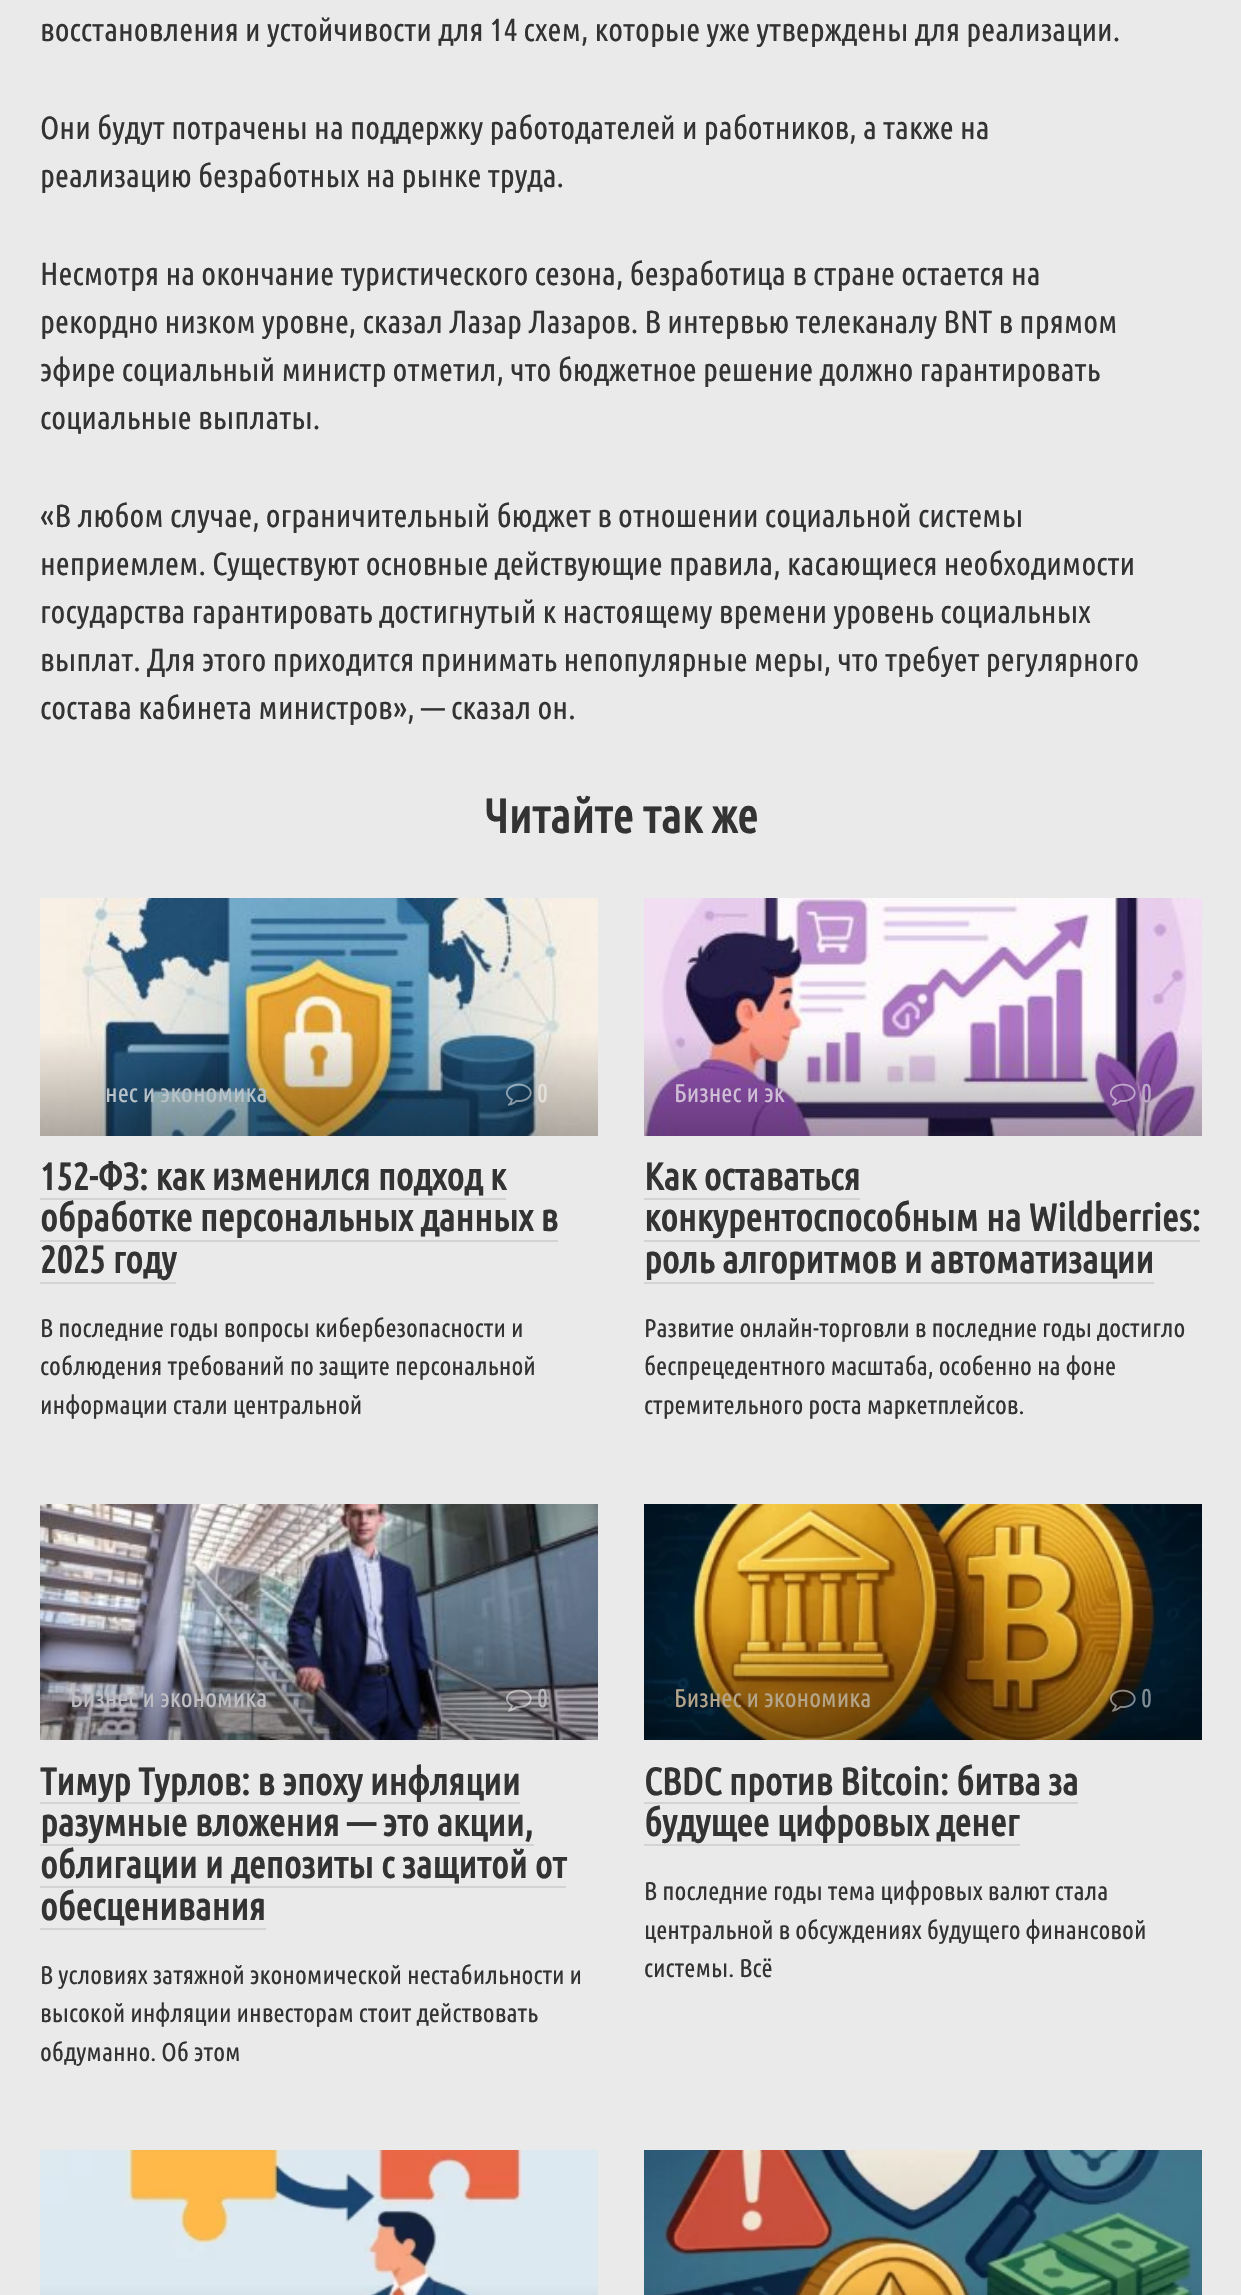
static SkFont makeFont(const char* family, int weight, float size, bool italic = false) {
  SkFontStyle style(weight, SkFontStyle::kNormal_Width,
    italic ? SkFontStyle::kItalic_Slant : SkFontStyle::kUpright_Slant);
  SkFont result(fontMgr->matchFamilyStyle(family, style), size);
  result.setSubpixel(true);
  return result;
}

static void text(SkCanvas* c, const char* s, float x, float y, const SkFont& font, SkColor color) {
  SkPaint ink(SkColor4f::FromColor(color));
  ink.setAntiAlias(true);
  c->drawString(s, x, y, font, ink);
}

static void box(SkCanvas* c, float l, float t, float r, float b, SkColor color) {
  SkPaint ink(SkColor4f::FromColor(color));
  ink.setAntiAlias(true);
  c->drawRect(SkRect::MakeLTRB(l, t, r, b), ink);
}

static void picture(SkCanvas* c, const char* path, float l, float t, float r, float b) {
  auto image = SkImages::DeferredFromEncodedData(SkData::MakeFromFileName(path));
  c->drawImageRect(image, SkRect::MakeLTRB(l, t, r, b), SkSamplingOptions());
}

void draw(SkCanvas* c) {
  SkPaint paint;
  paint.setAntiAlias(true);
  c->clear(0xffeaeaea);
  SkFont face1 = makeFont("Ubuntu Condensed", 400, 32);
  text(c, "восстановления и устойчивости для 14 схем, которые уже утверждены для реализации.", 40, 41, face1, 0xff333333);
  text(c, "Они будут потрачены на поддержку работодателей и работников, а также на", 40, 139, face1, 0xff333333);
  text(c, "реализацию безработных на рынке труда.", 40, 187, face1, 0xff333333);
  text(c, "Несмотря на окончание туристического сезона, безработица в стране остается на", 40, 285, face1, 0xff333333);
  text(c, "рекордно низком уровне, сказал Лазар Лазаров. В интервью телеканалу BNT в прямом", 40, 333, face1, 0xff333333);
  text(c, "эфире социальный министр отметил, что бюджетное решение должно гарантировать", 40, 381, face1, 0xff333333);
  text(c, "социальные выплаты.", 40, 429, face1, 0xff333333);
  text(c, "«В любом случае, ограничительный бюджет в отношении социальной системы", 40, 527, face1, 0xff333333);
  text(c, "неприемлем. Существуют основные действующие правила, касающиеся необходимости", 40, 575, face1, 0xff333333);
  text(c, "государства гарантировать достигнутый к настоящему времени уровень социальных", 40, 623, face1, 0xff333333);
  text(c, "выплат. Для этого приходится принимать непопулярные меры, что требует регулярного", 40, 671, face1, 0xff333333);
  text(c, "состава кабинета министров», — сказал он.", 40, 719, face1, 0xff333333);
  SkFont face2 = makeFont("Ubuntu Condensed", 700, 48);
  text(c, "Читайте так же", 484, 833, face2, 0xff333333);
  picture(c, "img_01.png", 40, 898, 598, 1136);
  SkFont face3 = makeFont("Ubuntu Condensed", 400, 25.6f);
  text(c, "нес и экономика", 105, 1102, face3, 0xffb7c2c8);
  picture(c, "img_02.png", 506, 1083, 532, 1106);
  text(c, "0", 537, 1102, face3, 0xffe4e1dc);
  SkFont face4 = makeFont("Ubuntu Condensed", 700, 38);
  text(c, "152-ФЗ: как изменился подход к", 40, 1190, face4, 0xff333333);
  box(c, 40, 1198, 506, 1200, 0xffd3d3d3);
  text(c, "обработке персональных данных в", 40, 1231, face4, 0xff333333);
  box(c, 40, 1240, 558, 1242, 0xffd3d3d3);
  text(c, "2025 году", 40, 1273, face4, 0xff333333);
  box(c, 40, 1282, 176, 1284, 0xffd3d3d3);
  text(c, "В последние годы вопросы кибербезопасности и", 40, 1337, face3, 0xff333333);
  text(c, "соблюдения требований по защите персональной", 40, 1375, face3, 0xff333333);
  text(c, "информации стали центральной", 40, 1414, face3, 0xff333333);
  picture(c, "img_03.png", 644, 898, 1202, 1136);
  text(c, "Бизнес и эк", 674, 1102, face3, 0xffcfbfd6);
  picture(c, "img_04.png", 1110, 1083, 1136, 1106);
  text(c, "0", 1141, 1102, face3, 0xffbfa9ca);
  text(c, "Как оставаться", 644, 1190, face4, 0xff333333);
  text(c, "конкурентоспособным на Wildberries:", 644, 1231, face4, 0xff333333);
  box(c, 644, 1198, 860, 1200, 0xffd3d3d3);
  box(c, 644, 1240, 1200, 1242, 0xffd3d3d3);
  text(c, "роль алгоритмов и автоматизации", 644, 1273, face4, 0xff333333);
  box(c, 644, 1282, 1154, 1284, 0xffd3d3d3);
  text(c, "Развитие онлайн-торговли в последние годы достигло", 644, 1337, face3, 0xff333333);
  text(c, "беспрецедентного масштаба, особенно на фоне", 644, 1375, face3, 0xff333333);
  text(c, "стремительного роста маркетплейсов.", 644, 1414, face3, 0xff333333);
  picture(c, "img_05.png", 40, 1504, 598, 1740);
  text(c, "Бизнес и экономика", 70, 1707, face3, 0xffbebec3);
  picture(c, "img_06.png", 506, 1689, 532, 1712);
  text(c, "0", 537, 1707, face3, 0xffb9b8bb);
  box(c, 40, 1802, 520, 1804, 0xffd3d3d3);
  text(c, "Тимур Турлов: в эпоху инфляции", 40, 1795, face4, 0xff333333);
  text(c, "разумные вложения — это акции,", 40, 1836, face4, 0xff333333);
  box(c, 40, 1844, 534, 1846, 0xffd3d3d3);
  text(c, "облигации и депозиты с защитой от", 40, 1878, face4, 0xff333333);
  box(c, 40, 1886, 566, 1888, 0xffd3d3d3);
  text(c, "обесценивания", 40, 1920, face4, 0xff333333);
  box(c, 40, 1928, 266, 1930, 0xffd3d3d3);
  text(c, "В условиях затяжной экономической нестабильности и", 40, 1984, face3, 0xff333333);
  text(c, "высокой инфляции инвесторам стоит действовать", 40, 2022, face3, 0xff333333);
  text(c, "обдуманно. Об этом", 40, 2061, face3, 0xff333333);
  picture(c, "img_07.png", 644, 1504, 1202, 1740);
  text(c, "Бизнес и экономика", 674, 1707, face3, 0xffb4a58a);
  picture(c, "img_08.png", 1110, 1689, 1136, 1712);
  text(c, "0", 1141, 1707, face3, 0xff808c94);
  text(c, "CBDC против Bitcoin: битва за", 644, 1795, face4, 0xff333333);
  box(c, 644, 1802, 1078, 1804, 0xffd3d3d3);
  text(c, "будущее цифровых денег", 644, 1836, face4, 0xff333333);
  box(c, 644, 1844, 1020, 1846, 0xffd3d3d3);
  text(c, "В последние годы тема цифровых валют стала", 644, 1900, face3, 0xff333333);
  text(c, "центральной в обсуждениях будущего финансовой", 644, 1939, face3, 0xff333333);
  text(c, "системы. Всё", 644, 1977, face3, 0xff333333);
  picture(c, "img_09.png", 40, 2150, 598, 2295);
  picture(c, "img_10.png", 644, 2150, 1202, 2295);
}
